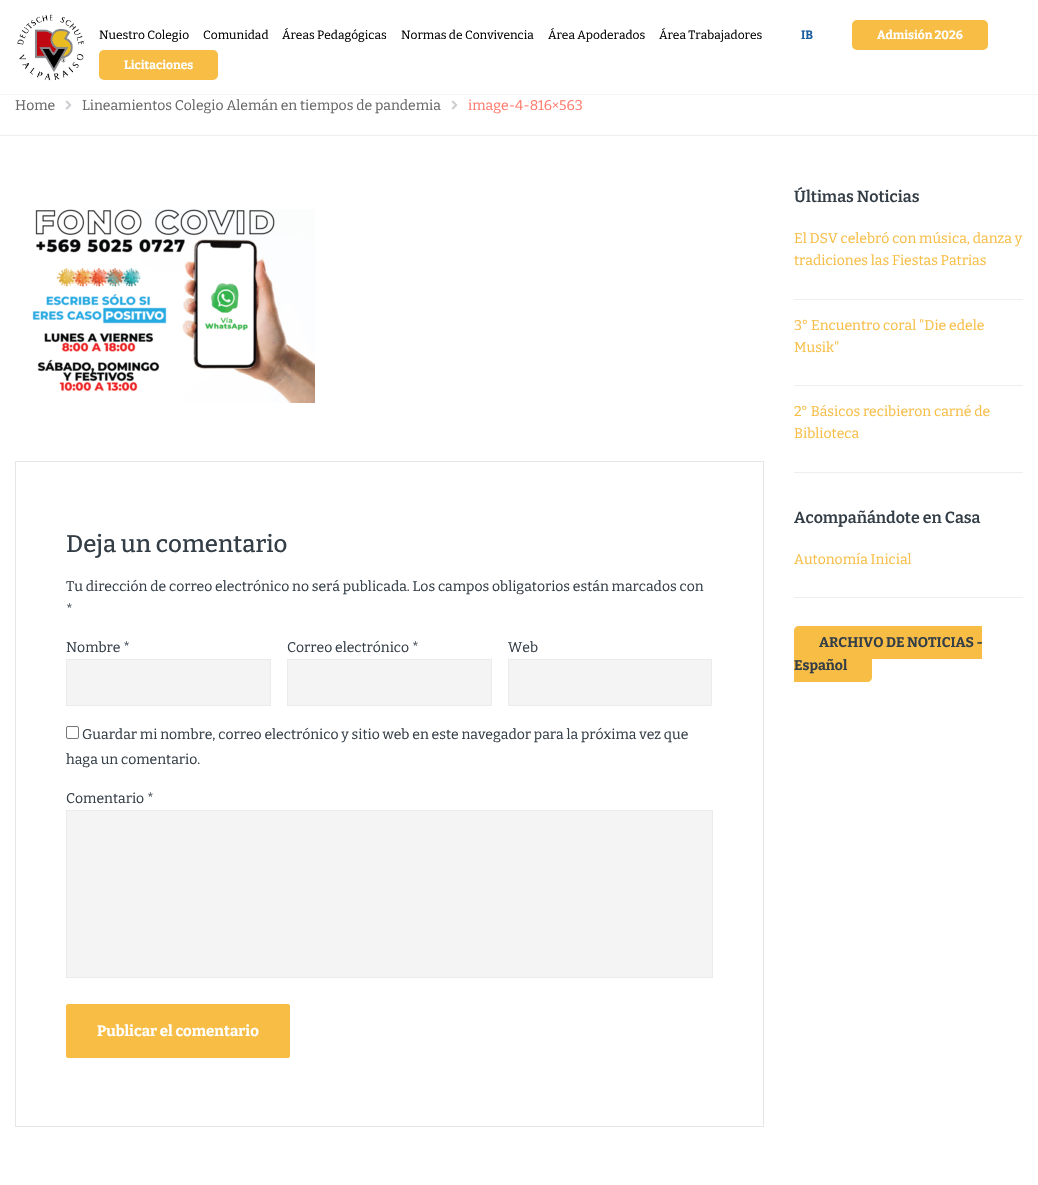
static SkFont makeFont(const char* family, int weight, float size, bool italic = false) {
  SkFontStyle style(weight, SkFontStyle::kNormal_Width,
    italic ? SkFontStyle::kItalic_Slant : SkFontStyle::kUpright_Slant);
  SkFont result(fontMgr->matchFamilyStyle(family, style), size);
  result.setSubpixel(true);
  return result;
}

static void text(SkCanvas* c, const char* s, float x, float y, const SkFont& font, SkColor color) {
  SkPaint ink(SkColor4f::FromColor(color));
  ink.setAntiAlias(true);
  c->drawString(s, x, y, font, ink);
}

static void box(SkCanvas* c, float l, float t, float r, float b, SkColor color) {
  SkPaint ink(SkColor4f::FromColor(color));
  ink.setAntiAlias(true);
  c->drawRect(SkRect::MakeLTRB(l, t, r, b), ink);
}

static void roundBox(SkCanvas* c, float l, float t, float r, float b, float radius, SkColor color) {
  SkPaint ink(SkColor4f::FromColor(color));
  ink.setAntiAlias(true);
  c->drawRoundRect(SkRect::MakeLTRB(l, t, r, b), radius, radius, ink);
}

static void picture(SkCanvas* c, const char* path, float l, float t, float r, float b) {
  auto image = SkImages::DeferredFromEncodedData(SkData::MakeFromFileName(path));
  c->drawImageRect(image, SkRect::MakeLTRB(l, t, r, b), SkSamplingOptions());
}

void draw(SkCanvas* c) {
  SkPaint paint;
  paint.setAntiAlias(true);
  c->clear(0xffffffff);
  box(c, 0, 94, 1038, 95, 0xfff5f5f5);
  picture(c, "img_01.png", 17, 14, 84, 81);
  SkFont face1 = makeFont("Bitter", 400, 12);
  text(c, "Nuestro Colegio", 99, 39, face1, 0xff000000);
  text(c, "Comunidad", 203, 39, face1, 0xff000000);
  text(c, "Áreas Pedagógicas", 282, 39, face1, 0xff000000);
  text(c, "Normas de Convivencia", 401, 39, face1, 0xff000000);
  text(c, "Área Apoderados", 548, 39, face1, 0xff000000);
  text(c, "Área Trabajadores", 659, 39, face1, 0xff000000);
  SkFont face2 = makeFont("Bitter", 700, 12);
  text(c, "IB", 801, 39, face2, 0xff1a5e9f);
  roundBox(c, 852, 20, 988, 50, 5, 0xfff7bd45);
  text(c, "Admisión 2026", 877, 39, face2, 0xffffffff);
  roundBox(c, 99, 50, 218, 80, 5, 0xfff7bd45);
  text(c, "Licitaciones", 124, 69, face2, 0xffffffff);
  box(c, 0, 135, 1038, 136, 0xffeeeeee);
  SkFont face3 = makeFont("Bitter", 400, 14);
  text(c, "Home", 15, 110, face3, 0xff666666);
  picture(c, "img_02.png", 65, 100, 72, 110);
  text(c, "Lineamientos Colegio Alemán en tiempos de pandemia", 82, 110, face3, 0xff666666);
  picture(c, "img_02.png", 451, 100, 458, 110);
  text(c, "image-4-816×563", 468, 110, face3, 0xffff7a6d);
  SkFont face4 = makeFont("Bitter", 600, 16);
  text(c, "Últimas Noticias", 794, 202, face4, 0xff343e47);
  box(c, 794, 299, 1023, 300, 0xffeeeeee);
  text(c, "El DSV celebró con música, danza y", 794, 243, face3, 0xfff7bd45);
  text(c, "tradiciones las Fiestas Patrias", 794, 265, face3, 0xfff7bd45);
  box(c, 794, 385, 1023, 386, 0xffeeeeee);
  text(c, "3° Encuentro coral \"Die edele", 794, 330, face3, 0xfff7bd45);
  text(c, "Musik\"", 794, 352, face3, 0xfff7bd45);
  box(c, 794, 472, 1023, 473, 0xffeeeeee);
  text(c, "2° Básicos recibieron carné de", 794, 416, face3, 0xfff7bd45);
  text(c, "Biblioteca", 794, 438, face3, 0xfff7bd45);
  text(c, "Acompañándote en Casa", 794, 523, face4, 0xff343e47);
  box(c, 794, 597, 1023, 598, 0xffeeeeee);
  text(c, "Autonomía Inicial", 794, 564, face3, 0xfff7bd45);
  paint.setColor(0xfff7bd45);
  c->drawPath(SkPathBuilder().moveTo(799, 626).lineTo(982, 626).lineTo(982, 659).lineTo(799, 659).cubicTo(796, 659, 794, 657, 794, 654).lineTo(794, 631).cubicTo(794, 628, 796, 626, 799, 626).close().detach(), paint);
  SkFont face5 = makeFont("Bitter", 700, 14);
  text(c, "ARCHIVO DE NOTICIAS -", 819, 647, face5, 0xff343e47);
  c->drawPath(SkPathBuilder().moveTo(794, 649).lineTo(867, 649).cubicTo(870, 649, 872, 651, 872, 654).lineTo(872, 677).cubicTo(872, 680, 870, 682, 867, 682).lineTo(794, 682).close().detach(), paint);
  text(c, "Español", 794, 670, face5, 0xff343e47);
  picture(c, "img_03.png", 32, 209, 315, 403);
  paint.setStyle(SkPaint::kStroke_Style);
  paint.setStrokeWidth(1);
  paint.setColor(0xffe6e6e6);
  c->drawRect(SkRect::MakeLTRB(15.5f, 461.5f, 763.5f, 1126.5f), paint);
  SkFont face6 = makeFont("Bitter", 500, 24);
  text(c, "Deja un comentario", 66, 552, face6, 0xff343e47);
  text(c, "Tu dirección de correo electrónico no será publicada. Los campos obligatorios están marcados con", 66, 591, face3, 0xff343e47);
  text(c, "*", 66, 614, face3, 0xff343e47);
  text(c, "Nombre *", 66, 652, face3, 0xff343e47);
  paint.setStyle(SkPaint::kFill_Style);
  paint.setColor(0xfff4f4f4);
  c->drawRect(SkRect::MakeLTRB(66.5f, 659.5f, 270.5f, 705.5f), paint);
  paint.setStyle(SkPaint::kStroke_Style);
  paint.setColor(0xffebebeb);
  c->drawRect(SkRect::MakeLTRB(66.5f, 659.5f, 270.5f, 705.5f), paint);
  text(c, "Correo electrónico *", 287, 652, face3, 0xff343e47);
  paint.setStyle(SkPaint::kFill_Style);
  paint.setColor(0xfff4f4f4);
  c->drawRect(SkRect::MakeLTRB(287.5f, 659.5f, 491.5f, 705.5f), paint);
  paint.setStyle(SkPaint::kStroke_Style);
  paint.setColor(0xffebebeb);
  c->drawRect(SkRect::MakeLTRB(287.5f, 659.5f, 491.5f, 705.5f), paint);
  text(c, "Web", 508, 652, face3, 0xff343e47);
  paint.setStyle(SkPaint::kFill_Style);
  paint.setColor(0xfff4f4f4);
  c->drawRect(SkRect::MakeLTRB(508.5f, 659.5f, 711.5f, 705.5f), paint);
  paint.setStyle(SkPaint::kStroke_Style);
  paint.setColor(0xffebebeb);
  c->drawRect(SkRect::MakeLTRB(508.5f, 659.5f, 711.5f, 705.5f), paint);
  paint.setColor(0xff767676);
  c->drawRoundRect(SkRect::MakeLTRB(66.5f, 726.5f, 78.5f, 738.5f), 1.5f, 1.5f, paint);
  text(c, "Guardar mi nombre, correo electrónico y sitio web en este navegador para la próxima vez que", 82, 739, face3, 0xff343e47);
  text(c, "haga un comentario.", 66, 764, face3, 0xff343e47);
  text(c, "Comentario *", 66, 803, face3, 0xff343e47);
  paint.setStyle(SkPaint::kFill_Style);
  paint.setColor(0xfff4f4f4);
  c->drawRect(SkRect::MakeLTRB(66.5f, 810.5f, 712.5f, 977.5f), paint);
  paint.setStyle(SkPaint::kStroke_Style);
  paint.setColor(0xffebebeb);
  c->drawRect(SkRect::MakeLTRB(66.5f, 810.5f, 712.5f, 977.5f), paint);
  paint.setStyle(SkPaint::kFill_Style);
  paint.setColor(0xfff7bd45);
  c->drawRoundRect(SkRect::MakeLTRB(66.5f, 1004.5f, 289.5f, 1057.5f), 1.5f, 1.5f, paint);
  paint.setStyle(SkPaint::kStroke_Style);
  c->drawRoundRect(SkRect::MakeLTRB(66.5f, 1004.5f, 289.5f, 1057.5f), 1.5f, 1.5f, paint);
  SkFont face7 = makeFont("Bitter", 700, 15);
  text(c, "Publicar el comentario", 97, 1036, face7, 0xffffffff);
}
